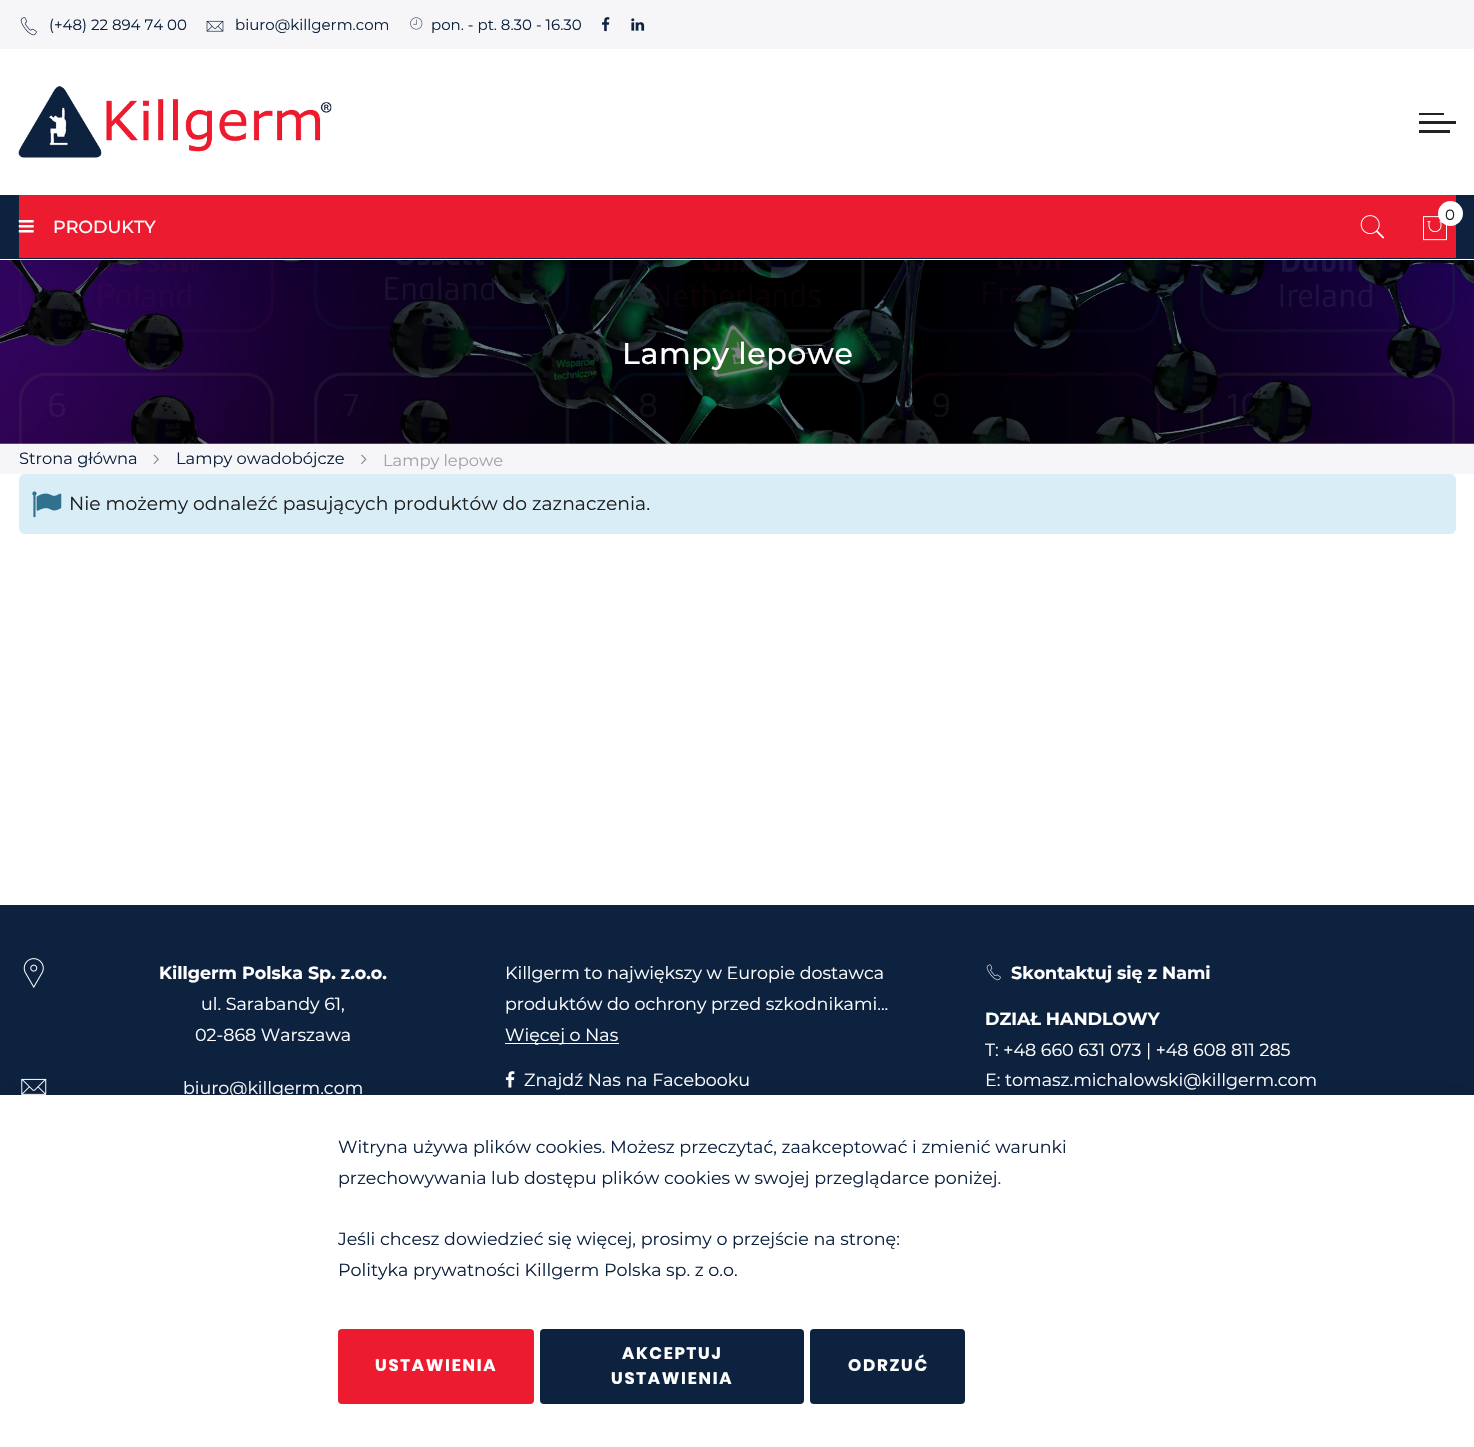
static SkFont makeFont(const char* family, int weight, float size, bool italic = false) {
  SkFontStyle style(weight, SkFontStyle::kNormal_Width,
    italic ? SkFontStyle::kItalic_Slant : SkFontStyle::kUpright_Slant);
  SkFont result(fontMgr->matchFamilyStyle(family, style), size);
  result.setSubpixel(true);
  return result;
}

static void text(SkCanvas* c, const char* s, float x, float y, const SkFont& font, SkColor color) {
  SkPaint ink(SkColor4f::FromColor(color));
  ink.setAntiAlias(true);
  c->drawString(s, x, y, font, ink);
}

static void spacedText(SkCanvas* c, const char* s, float x, float y, const SkFont& font, const SkPaint& ink, float letter, float word) {
  std::vector<SkGlyphID> glyphs(font.countText(s, strlen(s), SkTextEncoding::kUTF8));
  std::vector<float> xs(glyphs.size());
  font.textToGlyphs(s, strlen(s), SkTextEncoding::kUTF8, glyphs);
  font.getXPos(glyphs, xs, x);
  float extra = 0;
  for (size_t i = 0; i < glyphs.size(); i++) {
    xs[i] += extra;
    extra += letter + word * (glyphs[i] == font.unicharToGlyph(' '));
  }
  c->drawTextBlob(SkTextBlob::MakeFromPosHGlyphs(glyphs, xs, y, font), 0, 0, ink);
}

static void box(SkCanvas* c, float l, float t, float r, float b, SkColor color) {
  SkPaint ink(SkColor4f::FromColor(color));
  ink.setAntiAlias(true);
  c->drawRect(SkRect::MakeLTRB(l, t, r, b), ink);
}

static void roundBox(SkCanvas* c, float l, float t, float r, float b, float radius, SkColor color) {
  SkPaint ink(SkColor4f::FromColor(color));
  ink.setAntiAlias(true);
  c->drawRoundRect(SkRect::MakeLTRB(l, t, r, b), radius, radius, ink);
}

static void picture(SkCanvas* c, const char* path, float l, float t, float r, float b) {
  auto image = SkImages::DeferredFromEncodedData(SkData::MakeFromFileName(path));
  c->drawImageRect(image, SkRect::MakeLTRB(l, t, r, b), SkSamplingOptions());
}

void draw(SkCanvas* c) {
  SkPaint paint;
  paint.setAntiAlias(true);
  c->clear(0xffffffff);
  box(c, 0, 0, 1474, 49, 0xfff6f6f8);
  picture(c, "img_01.png", 20, 17, 37, 36);
  SkFont face1 = makeFont("Montserrat", 100, 15);
  text(c, "(+48) 22 894 74 00", 49, 30, face1, 0xff0d223f);
  picture(c, "img_02.png", 206, 20, 224, 32);
  text(c, "biuro@killgerm.com", 235, 30, face1, 0xff0d223f);
  picture(c, "img_03.png", 410, 17, 423, 30);
  text(c, "pon. - pt. 8.30 - 16.30", 431, 30, face1, 0xff0d223f);
  picture(c, "img_04.png", 602, 17, 610, 32);
  picture(c, "img_05.png", 631, 18, 645, 31);
  picture(c, "img_06.png", 18, 86, 332, 158);
  box(c, 1419, 113, 1444, 115, 0xff222222);
  box(c, 1419, 121, 1456, 124, 0xff222222);
  box(c, 1419, 130, 1450, 133, 0xff222222);
  box(c, 0, 195, 1474, 259, 0xff0d223f);
  box(c, 19, 195, 1456, 258, 0xffed1b2f);
  picture(c, "img_07.png", 1360, 215, 1385, 239);
  picture(c, "img_08.png", 1423, 216, 1447, 241);
  paint.setColor(0xffffffff);
  c->drawCircle(1450.5f, 213.5f, 12.5f, paint);
  text(c, "0", 1445, 220, face1, 0xff1f1f1f);
  picture(c, "img_09.png", 18, 220, 34, 233);
  SkFont face2 = makeFont("Montserrat", 500, 17.5f);
  text(c, "PRODUKTY", 53, 233, face2, 0xffffffff);
  picture(c, "img_10.png", 0, 260, 1474, 444);
  SkFont face3 = makeFont("Montserrat", 500, 30);
  spacedText(c, "Lampy lepowe", 622, 364, face3, paint, 0.6f, 0);
  box(c, 0, 444, 1474, 474, 0xfff6f6f8);
  SkFont face4 = makeFont("Montserrat", 100, 16.25f);
  text(c, "Strona główna", 19, 464, face4, 0xff0d223f);
  picture(c, "img_11.png", 153, 454, 159, 465);
  text(c, "Lampy owadobójcze", 176, 464, face4, 0xff0d223f);
  picture(c, "img_12.png", 361, 454, 367, 465);
  text(c, "Lampy lepowe", 383, 466, face4, 0xffa3a3a3);
  roundBox(c, 19, 474, 1456, 534, 6, 0xffd9edf7);
  picture(c, "img_13.png", 32, 491, 62, 518);
  SkFont face5 = makeFont("Montserrat", 100, 18.75f);
  text(c, "Nie możemy odnaleźć pasujących produktów do zaznaczenia.", 69, 510, face5, 0xff1f1f1f);
  box(c, 0, 905, 1474, 1095, 0xff0d223f);
  picture(c, "img_14.png", 23, 958, 44, 988);
  SkFont face6 = makeFont("Montserrat", 700, 17.5f);
  text(c, "Killgerm Polska Sp. z.o.o.", 159, 979, face6, 0xffffffff);
  SkFont face7 = makeFont("Montserrat", 100, 17.5f);
  text(c, "ul. Sarabandy 61,", 201, 1010, face7, 0xffffffff);
  text(c, "02-868 Warszawa", 195, 1041, face7, 0xffffffff);
  picture(c, "img_15.png", 21, 1078, 47, 1095);
  text(c, "biuro@killgerm.com", 183, 1094, face7, 0xffffffff);
  text(c, "Killgerm to największy w Europie dostawca", 505, 979, face7, 0xffffffff);
  text(c, "produktów do ochrony przed szkodnikami...", 505, 1010, face7, 0xffffffff);
  box(c, 505, 1043, 619, 1044, 0xffffffff);
  text(c, "Więcej o Nas", 505, 1041, face7, 0xffffffff);
  picture(c, "img_16.png", 505, 1071, 515, 1088);
  text(c, "Znajdź Nas na Facebooku", 524, 1086, face7, 0xffffffff);
  picture(c, "img_17.png", 986, 964, 1001, 981);
  text(c, "Skontaktuj się z Nami", 1011, 979, face6, 0xffffffff);
  text(c, "DZIAŁ HANDLOWY", 985, 1025, face6, 0xffffffff);
  text(c, "T: +48 660 631 073 | +48 608 811 285", 985, 1056, face7, 0xffffffff);
  text(c, "E: tomasz.michalowski@killgerm.com", 985, 1086, face7, 0xffffffff);
  paint.setColor(0x0f000000);
  paint.setMaskFilter(SkMaskFilter::MakeBlur(kNormal_SkBlurStyle, 11));
  c->drawRect(SkRect::MakeLTRB(0, 1093, 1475, 1445), paint);
  paint.setMaskFilter(nullptr);
  box(c, 0, 1095, 1474, 1447, 0xffffffff);
  text(c, "Witryna używa plików cookies. Możesz przeczytać, zaakceptować i zmienić warunki", 338, 1153, face7, 0xff0d223f);
  text(c, "przechowywania lub dostępu plików cookies w swojej przeglądarce poniżej.", 338, 1184, face7, 0xff0d223f);
  text(c, "Jeśli chcesz dowiedzieć się więcej, prosimy o przejście na stronę:", 338, 1245, face7, 0xff0d223f);
  text(c, "Polityka prywatności Killgerm Polska sp. z o.o.", 338, 1276, face7, 0xff0d223f);
  roundBox(c, 338, 1329, 534, 1404, 4, 0xffed1b2f);
  SkFont face8 = makeFont("Poppins", 700, 16.75f);
  paint.setColor(0xffffffff);
  spacedText(c, "USTAWIENIA", 375, 1371, face8, paint, 1.75f, 0);
  roundBox(c, 540, 1329, 804, 1404, 4, 0xff0d223f);
  spacedText(c, "AKCEPTUJ", 622, 1359, face8, paint, 1.75f, 0);
  spacedText(c, "USTAWIENIA", 611, 1384, face8, paint, 1.75f, 0);
  roundBox(c, 810, 1329, 965, 1404, 4, 0xff0d223f);
  spacedText(c, "ODRZUĆ", 848, 1371, face8, paint, 1.75f, 0);
}
